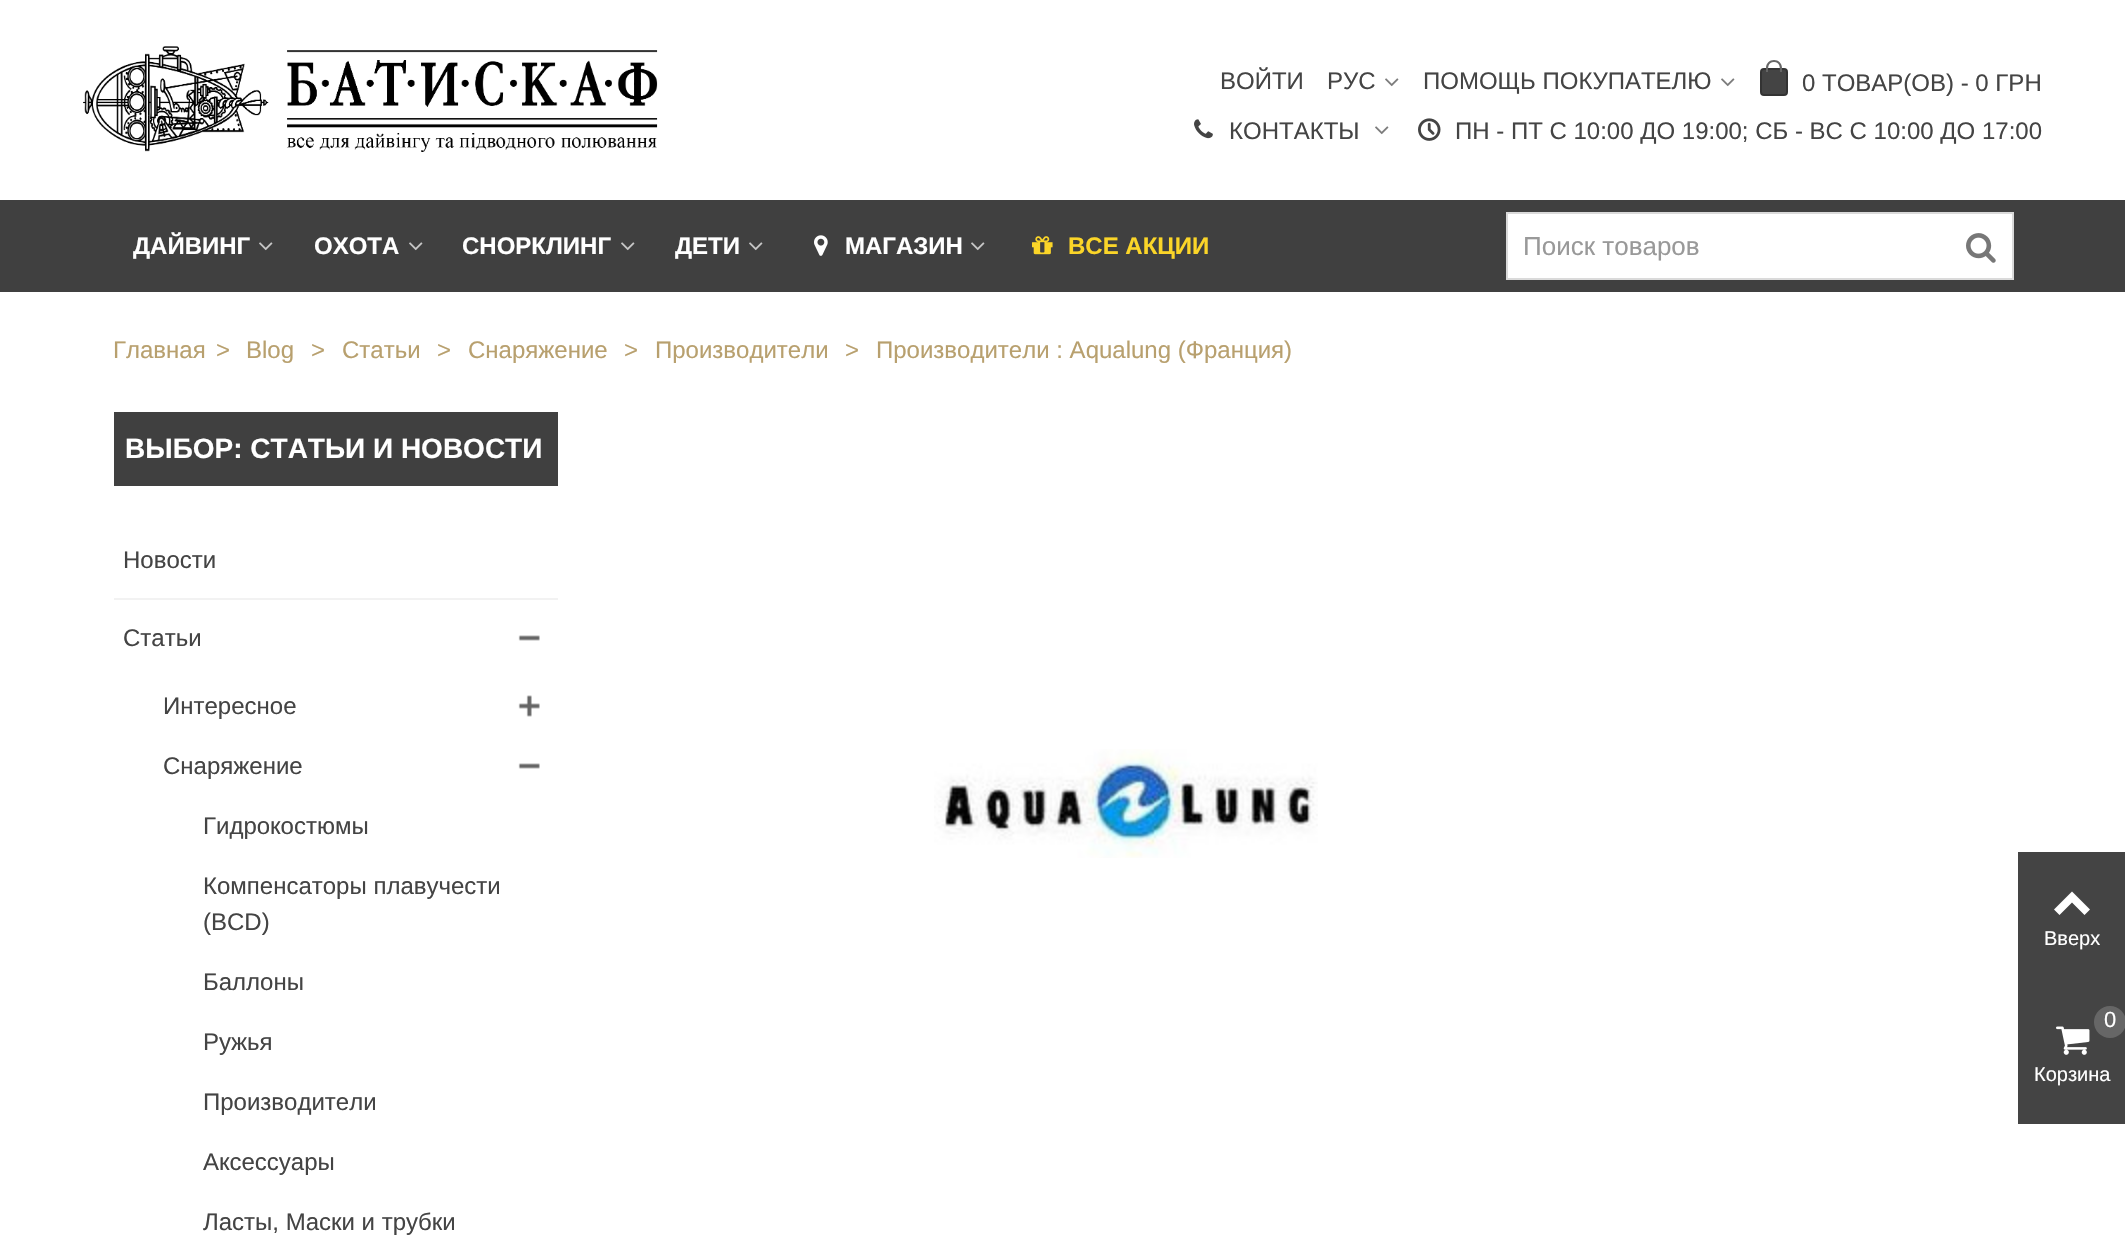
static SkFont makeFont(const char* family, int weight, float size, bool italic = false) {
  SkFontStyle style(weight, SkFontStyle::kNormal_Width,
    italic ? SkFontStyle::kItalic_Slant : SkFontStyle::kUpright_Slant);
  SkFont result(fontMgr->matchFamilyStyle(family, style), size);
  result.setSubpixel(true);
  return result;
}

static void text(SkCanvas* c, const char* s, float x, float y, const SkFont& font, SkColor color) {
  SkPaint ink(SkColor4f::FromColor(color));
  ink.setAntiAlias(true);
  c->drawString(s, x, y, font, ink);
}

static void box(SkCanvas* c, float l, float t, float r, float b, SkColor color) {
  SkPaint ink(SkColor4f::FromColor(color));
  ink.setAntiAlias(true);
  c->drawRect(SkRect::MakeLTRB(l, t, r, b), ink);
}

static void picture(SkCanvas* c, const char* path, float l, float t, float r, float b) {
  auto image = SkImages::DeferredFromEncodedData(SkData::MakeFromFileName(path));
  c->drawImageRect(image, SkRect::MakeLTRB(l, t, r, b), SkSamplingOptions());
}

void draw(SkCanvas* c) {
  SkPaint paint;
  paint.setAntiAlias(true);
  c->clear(0xffffffff);
  picture(c, "img_01.png", 83, 46, 658, 152);
  SkFont face1 = makeFont("Liberation Sans", 400, 24);
  text(c, "ВОЙТИ", 1220, 89, face1, 0xff444444);
  text(c, "РУС", 1327, 89, face1, 0xff444444);
  picture(c, "img_02.png", 1385, 78, 1399, 87);
  text(c, "ПОМОЩЬ ПОКУПАТЕЛЮ", 1423, 89, face1, 0xff444444);
  picture(c, "img_02.png", 1721, 78, 1735, 87);
  paint.setColor(0xff444444);
  c->drawRoundRect(SkRect::MakeLTRB(1761, 69, 1787, 95), 3, 3, paint);
  paint.setStyle(SkPaint::kStroke_Style);
  paint.setStrokeWidth(2);
  paint.setColor(0xff333333);
  c->drawRoundRect(SkRect::MakeLTRB(1761, 69, 1787, 95), 3, 3, paint);
  paint.setStyle(SkPaint::kFill_Style);
  paint.setColor(0xff666666);
  c->drawPath(SkPathBuilder(SkPathFillType::kEvenOdd).moveTo(1774, 60).cubicTo(1778.5f, 60, 1782, 63.5f, 1782, 68).lineTo(1782, 72).lineTo(1766, 72).lineTo(1766, 68).cubicTo(1766, 63.5f, 1769.5f, 60, 1774, 60).close().moveTo(1774, 62).cubicTo(1780, 62, 1780, 67.5f, 1780, 72).lineTo(1768, 72).cubicTo(1768, 67.5f, 1768, 62, 1774, 62).close().detach(), paint);
  text(c, "0 ТОВАР(ОВ) - 0 ГРН", 1802, 91, face1, 0xff444444);
  picture(c, "img_03.png", 1194, 119, 1213, 139);
  text(c, "КОНТАКТЫ", 1229, 139, face1, 0xff444444);
  picture(c, "img_02.png", 1375, 126, 1389, 135);
  picture(c, "img_04.png", 1418, 118, 1441, 141);
  text(c, "ПН - ПТ C 10:00 ДО 19:00; СБ - ВС С 10:00 ДО 17:00", 1455, 139, face1, 0xff444444);
  box(c, 0, 200, 2125, 292, 0xff404040);
  SkFont face2 = makeFont("Liberation Sans", 700, 24);
  text(c, "ДАЙВИНГ", 133, 254, face2, 0xffffffff);
  picture(c, "img_05.png", 259, 242, 273, 251);
  text(c, "ОХОТА", 314, 254, face2, 0xffffffff);
  picture(c, "img_05.png", 409, 242, 423, 251);
  text(c, "СНОРКЛИНГ", 462, 254, face2, 0xffffffff);
  picture(c, "img_05.png", 621, 242, 635, 251);
  text(c, "ДЕТИ", 675, 254, face2, 0xffffffff);
  picture(c, "img_05.png", 749, 242, 763, 251);
  picture(c, "img_06.png", 814, 235, 828, 256);
  text(c, "МАГАЗИН", 845, 254, face2, 0xffffffff);
  picture(c, "img_05.png", 971, 242, 985, 251);
  picture(c, "img_07.png", 1032, 236, 1053, 255);
  text(c, "ВСЕ АКЦИИ", 1068, 254, face2, 0xfffbd528);
  paint.setColor(0xffffffff);
  c->drawRect(SkRect::MakeLTRB(1507, 213, 2013, 279), paint);
  paint.setStyle(SkPaint::kStroke_Style);
  paint.setColor(0xffdadada);
  c->drawRect(SkRect::MakeLTRB(1507, 213, 2013, 279), paint);
  SkFont face3 = makeFont("Liberation Sans", 400, 26);
  text(c, "Поиск товаров", 1523, 255, face3, 0xff999999);
  picture(c, "img_08.png", 1966, 233, 1996, 263);
  text(c, "Главная", 113, 358, face1, 0xffb8a06e);
  text(c, ">", 216, 358, face1, 0xffb8a06e);
  text(c, "Blog", 246, 358, face1, 0xffb8a06e);
  text(c, ">", 311, 358, face1, 0xffb8a06e);
  text(c, "Статьи", 342, 358, face1, 0xffb8a06e);
  text(c, ">", 437, 358, face1, 0xffb8a06e);
  text(c, "Снаряжение", 468, 358, face1, 0xffb8a06e);
  text(c, ">", 624, 358, face1, 0xffb8a06e);
  text(c, "Производители", 655, 358, face1, 0xffb8a06e);
  text(c, ">", 845, 358, face1, 0xffb8a06e);
  text(c, "Производители : Aqualung (Франция)", 876, 358, face1, 0xffb8a06e);
  box(c, 114, 412, 558, 486, 0xff404040);
  SkFont face4 = makeFont("Liberation Sans", 700, 28);
  text(c, "ВЫБОР: СТАТЬИ И НОВОСТИ", 125, 458, face4, 0xffffffff);
  box(c, 114, 598, 558, 600, 0xfff2f2f2);
  text(c, "Новости", 123, 568, face1, 0xff444444);
  text(c, "Статьи", 123, 646, face1, 0xff444444);
  picture(c, "img_09.png", 518, 635, 540, 641);
  text(c, "Интересное", 163, 714, face1, 0xff444444);
  picture(c, "img_10.png", 518, 695, 540, 717);
  text(c, "Снаряжение", 163, 774, face1, 0xff444444);
  picture(c, "img_09.png", 518, 763, 540, 769);
  text(c, "Гидрокостюмы", 203, 834, face1, 0xff444444);
  text(c, "Компенсаторы плавучести", 203, 894, face1, 0xff444444);
  text(c, "(BCD)", 203, 930, face1, 0xff444444);
  text(c, "Баллоны", 203, 990, face1, 0xff444444);
  text(c, "Ружья", 203, 1050, face1, 0xff444444);
  text(c, "Производители", 203, 1110, face1, 0xff444444);
  text(c, "Аксессуары", 203, 1170, face1, 0xff444444);
  text(c, "Ласты, Маски и трубки", 203, 1230, face1, 0xff444444);
  picture(c, "img_11.png", 934, 749, 1318, 858);
  box(c, 2018, 852, 2125, 1124, 0xff444444);
  paint.setStyle(SkPaint::kFill_Style);
  paint.setColor(0xffffffff);
  c->drawPath(SkPathBuilder().moveTo(2054, 909.5f).lineTo(2072, 891.5f).lineTo(2090, 909.5f).lineTo(2084.5f, 915).lineTo(2072, 902.5f).lineTo(2059.5f, 915).close().detach(), paint);
  SkFont face5 = makeFont("Liberation Sans", 400, 20);
  text(c, "Вверх", 2044, 945, face5, 0xffffffff);
  paint.setColor(0xff666666);
  c->drawCircle(2110, 1022, 16, paint);
  SkFont face6 = makeFont("Liberation Sans", 400, 22);
  text(c, "0", 2104, 1027, face6, 0xffffffff);
  picture(c, "img_12.png", 2056, 1026, 2090, 1055);
  text(c, "Корзина", 2034, 1081, face5, 0xffffffff);
}
